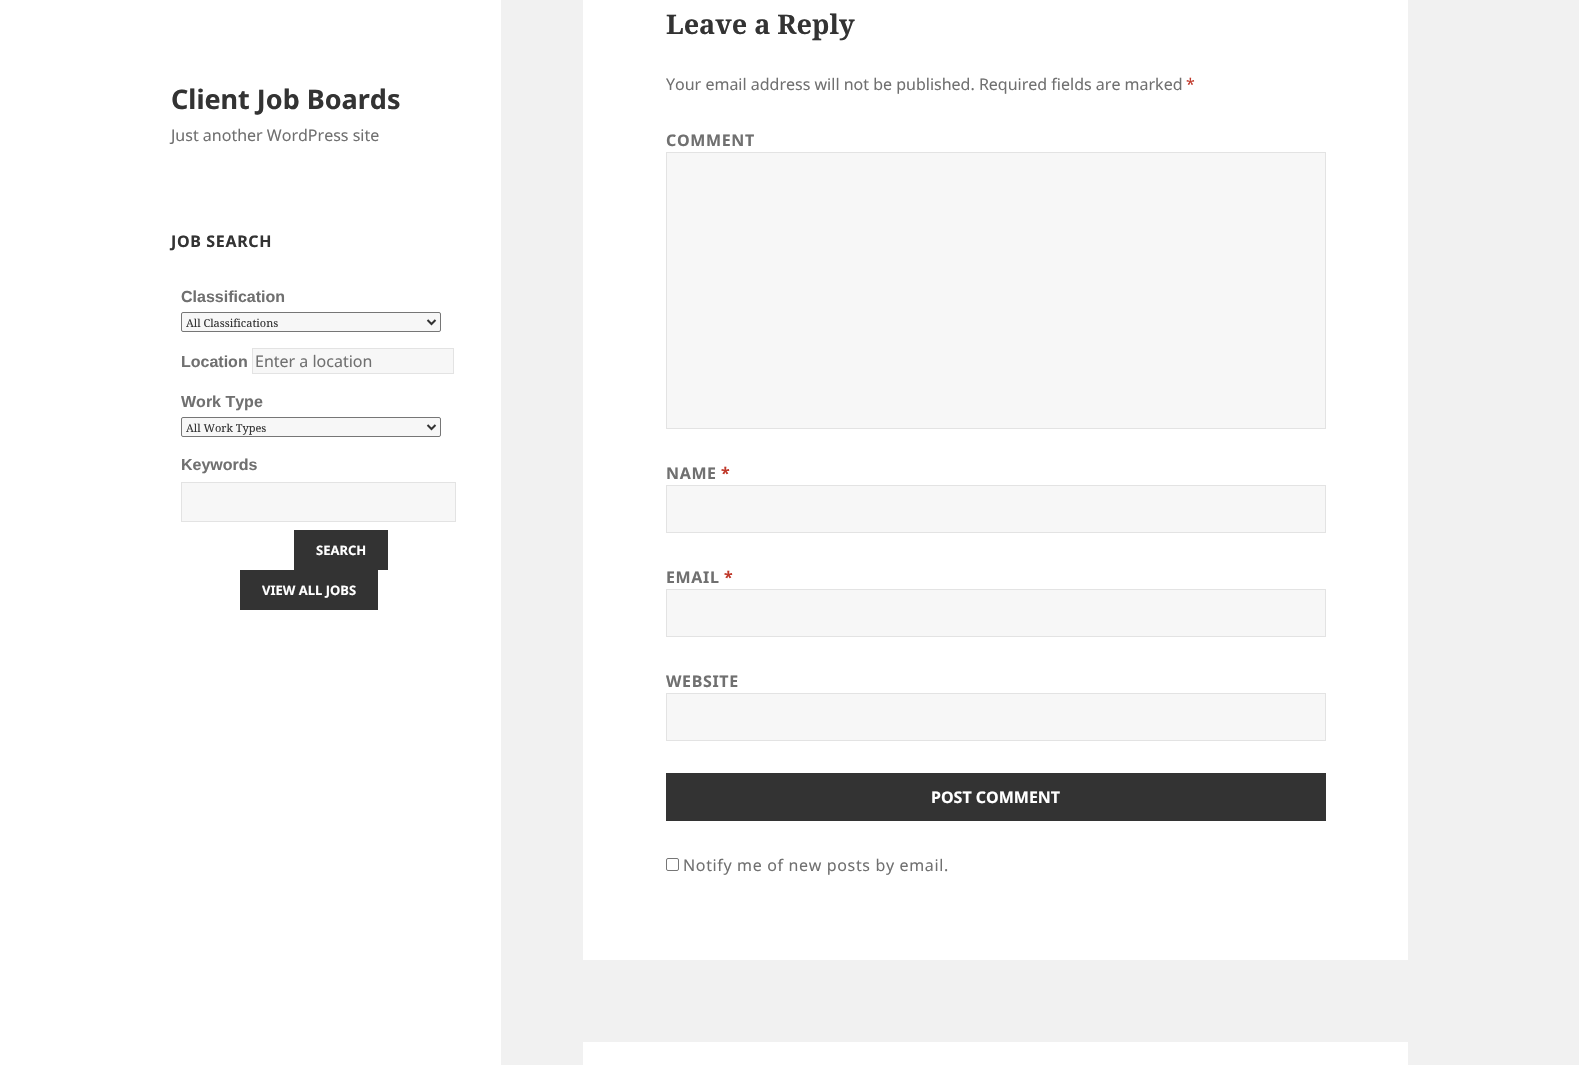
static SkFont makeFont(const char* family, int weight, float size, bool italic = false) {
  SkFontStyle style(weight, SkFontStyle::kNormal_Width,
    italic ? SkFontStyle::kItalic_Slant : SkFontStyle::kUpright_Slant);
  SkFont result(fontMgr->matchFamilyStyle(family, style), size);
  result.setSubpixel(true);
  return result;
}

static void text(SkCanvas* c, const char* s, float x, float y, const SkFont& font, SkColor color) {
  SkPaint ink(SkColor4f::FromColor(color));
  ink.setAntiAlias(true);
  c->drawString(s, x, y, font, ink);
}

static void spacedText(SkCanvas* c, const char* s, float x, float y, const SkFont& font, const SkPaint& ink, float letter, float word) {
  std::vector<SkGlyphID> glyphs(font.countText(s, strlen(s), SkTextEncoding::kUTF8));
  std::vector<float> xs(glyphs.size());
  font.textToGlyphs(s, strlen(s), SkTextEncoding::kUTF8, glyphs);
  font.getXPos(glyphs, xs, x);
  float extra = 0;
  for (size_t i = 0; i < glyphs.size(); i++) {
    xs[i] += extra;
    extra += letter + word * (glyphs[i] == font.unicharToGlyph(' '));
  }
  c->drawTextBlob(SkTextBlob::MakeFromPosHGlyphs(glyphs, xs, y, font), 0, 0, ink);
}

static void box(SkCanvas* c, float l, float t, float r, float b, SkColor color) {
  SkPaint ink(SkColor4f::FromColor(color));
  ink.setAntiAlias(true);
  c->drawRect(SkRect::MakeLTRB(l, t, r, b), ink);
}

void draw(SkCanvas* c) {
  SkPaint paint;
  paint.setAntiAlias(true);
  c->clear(0xfff1f1f1);
  box(c, 0, 0, 501, 1065, 0xffffffff);
  SkFont face1 = makeFont("Noto Sans", 700, 27);
  text(c, "Client Job Boards", 171, 109, face1, 0xff333333);
  SkFont face2 = makeFont("Noto Sans", 400, 16);
  text(c, "Just another WordPress site", 171, 141, face2, 0xff707070);
  SkFont face3 = makeFont("Noto Sans", 700, 16);
  paint.setColor(0xff333333);
  spacedText(c, "JOB SEARCH", 171, 247, face3, paint, 0.65f, 0);
  SkFont face4 = makeFont("Liberation Sans", 700, 16);
  text(c, "Classification", 181, 302, face4, 0xff707070);
  paint.setColor(0xfff7f7f7);
  c->drawRoundRect(SkRect::MakeLTRB(181.5f, 312.5f, 440.5f, 331.5f), 1.5f, 1.5f, paint);
  paint.setStyle(SkPaint::kStroke_Style);
  paint.setStrokeWidth(1);
  paint.setColor(0xff767676);
  c->drawRoundRect(SkRect::MakeLTRB(181.5f, 312.5f, 440.5f, 331.5f), 1.5f, 1.5f, paint);
  paint.setStrokeWidth(2);
  paint.setColor(0xff333333);
  c->drawPath(SkPathBuilder().moveTo(427.5f, 320).lineTo(431.5f, 324).lineTo(435.5f, 320).detach(), paint);
  SkFont face5 = makeFont("Noto Serif", 400, 11);
  text(c, "All Classifications", 186, 327, face5, 0xff333333);
  text(c, "Location", 181, 367, face4, 0xff707070);
  paint.setStyle(SkPaint::kFill_Style);
  paint.setColor(0xfff7f7f7);
  c->drawRect(SkRect::MakeLTRB(252.5f, 348.5f, 453.5f, 373.5f), paint);
  paint.setStyle(SkPaint::kStroke_Style);
  paint.setStrokeWidth(1);
  paint.setColor(0xffe3e3e3);
  c->drawRect(SkRect::MakeLTRB(252.5f, 348.5f, 453.5f, 373.5f), paint);
  text(c, "Enter a location", 255, 367, face2, 0xff707070);
  text(c, "Work Type", 181, 407, face4, 0xff707070);
  paint.setStyle(SkPaint::kFill_Style);
  paint.setColor(0xfff7f7f7);
  c->drawRoundRect(SkRect::MakeLTRB(181.5f, 417.5f, 440.5f, 436.5f), 1.5f, 1.5f, paint);
  paint.setStyle(SkPaint::kStroke_Style);
  paint.setColor(0xff767676);
  c->drawRoundRect(SkRect::MakeLTRB(181.5f, 417.5f, 440.5f, 436.5f), 1.5f, 1.5f, paint);
  paint.setStrokeWidth(2);
  paint.setColor(0xff333333);
  c->drawPath(SkPathBuilder().moveTo(427.5f, 425).lineTo(431.5f, 429).lineTo(435.5f, 425).detach(), paint);
  text(c, "All Work Types", 186, 432, face5, 0xff333333);
  text(c, "Keywords", 181, 470, face4, 0xff707070);
  paint.setStyle(SkPaint::kFill_Style);
  paint.setColor(0xfff7f7f7);
  c->drawRect(SkRect::MakeLTRB(181.5f, 482.5f, 455.5f, 521.5f), paint);
  paint.setStyle(SkPaint::kStroke_Style);
  paint.setStrokeWidth(1);
  paint.setColor(0xffe3e3e3);
  c->drawRect(SkRect::MakeLTRB(181.5f, 482.5f, 455.5f, 521.5f), paint);
  box(c, 294, 530, 388, 570, 0xff333333);
  SkFont face6 = makeFont("Noto Sans", 700, 13);
  text(c, "SEARCH", 316, 555, face6, 0xffffffff);
  box(c, 240, 570, 378, 610, 0xff333333);
  text(c, "VIEW ALL JOBS", 262, 595, face6, 0xffffffff);
  box(c, 583, 0, 1408, 960, 0xffffffff);
  SkFont face7 = makeFont("Noto Serif", 700, 27);
  text(c, "Leave a Reply", 666, 34, face7, 0xff333333);
  text(c, "Your email address will not be published. Required fields are marked", 666, 90, face2, 0xff707070);
  text(c, "*", 1186, 90, face2, 0xffc0392b);
  paint.setStyle(SkPaint::kFill_Style);
  paint.setColor(0xff707070);
  spacedText(c, "COMMENT", 666, 146, face3, paint, 0.65f, 0);
  paint.setColor(0xfff7f7f7);
  c->drawRect(SkRect::MakeLTRB(666.5f, 152.5f, 1325.5f, 428.5f), paint);
  paint.setStyle(SkPaint::kStroke_Style);
  paint.setColor(0xffe3e3e3);
  c->drawRect(SkRect::MakeLTRB(666.5f, 152.5f, 1325.5f, 428.5f), paint);
  paint.setStyle(SkPaint::kFill_Style);
  paint.setColor(0xff707070);
  spacedText(c, "NAME", 666, 479, face3, paint, 0.65f, 0);
  paint.setColor(0xffc0392b);
  spacedText(c, "*", 721, 479, face3, paint, 0.65f, 0);
  paint.setColor(0xfff7f7f7);
  c->drawRect(SkRect::MakeLTRB(666.5f, 485.5f, 1325.5f, 532.5f), paint);
  paint.setStyle(SkPaint::kStroke_Style);
  paint.setColor(0xffe3e3e3);
  c->drawRect(SkRect::MakeLTRB(666.5f, 485.5f, 1325.5f, 532.5f), paint);
  paint.setStyle(SkPaint::kFill_Style);
  paint.setColor(0xff707070);
  spacedText(c, "EMAIL", 666, 583, face3, paint, 0.65f, 0);
  paint.setColor(0xffc0392b);
  spacedText(c, "*", 724, 583, face3, paint, 0.65f, 0);
  paint.setColor(0xfff7f7f7);
  c->drawRect(SkRect::MakeLTRB(666.5f, 589.5f, 1325.5f, 636.5f), paint);
  paint.setStyle(SkPaint::kStroke_Style);
  paint.setColor(0xffe3e3e3);
  c->drawRect(SkRect::MakeLTRB(666.5f, 589.5f, 1325.5f, 636.5f), paint);
  paint.setStyle(SkPaint::kFill_Style);
  paint.setColor(0xff707070);
  spacedText(c, "WEBSITE", 666, 687, face3, paint, 0.65f, 0);
  paint.setColor(0xfff7f7f7);
  c->drawRect(SkRect::MakeLTRB(666.5f, 693.5f, 1325.5f, 740.5f), paint);
  paint.setStyle(SkPaint::kStroke_Style);
  paint.setColor(0xffe3e3e3);
  c->drawRect(SkRect::MakeLTRB(666.5f, 693.5f, 1325.5f, 740.5f), paint);
  box(c, 666, 773, 1326, 821, 0xff333333);
  text(c, "POST COMMENT", 931, 803, face3, 0xffffffff);
  paint.setColor(0xff767676);
  c->drawRoundRect(SkRect::MakeLTRB(666.5f, 858.5f, 678.5f, 870.5f), 1.5f, 1.5f, paint);
  paint.setStyle(SkPaint::kFill_Style);
  paint.setColor(0xff707070);
  spacedText(c, "Notify me of new posts by email.", 683, 871, face2, paint, 0.65f, 0);
  box(c, 583, 1042, 1408, 1065, 0xffffffff);
}
